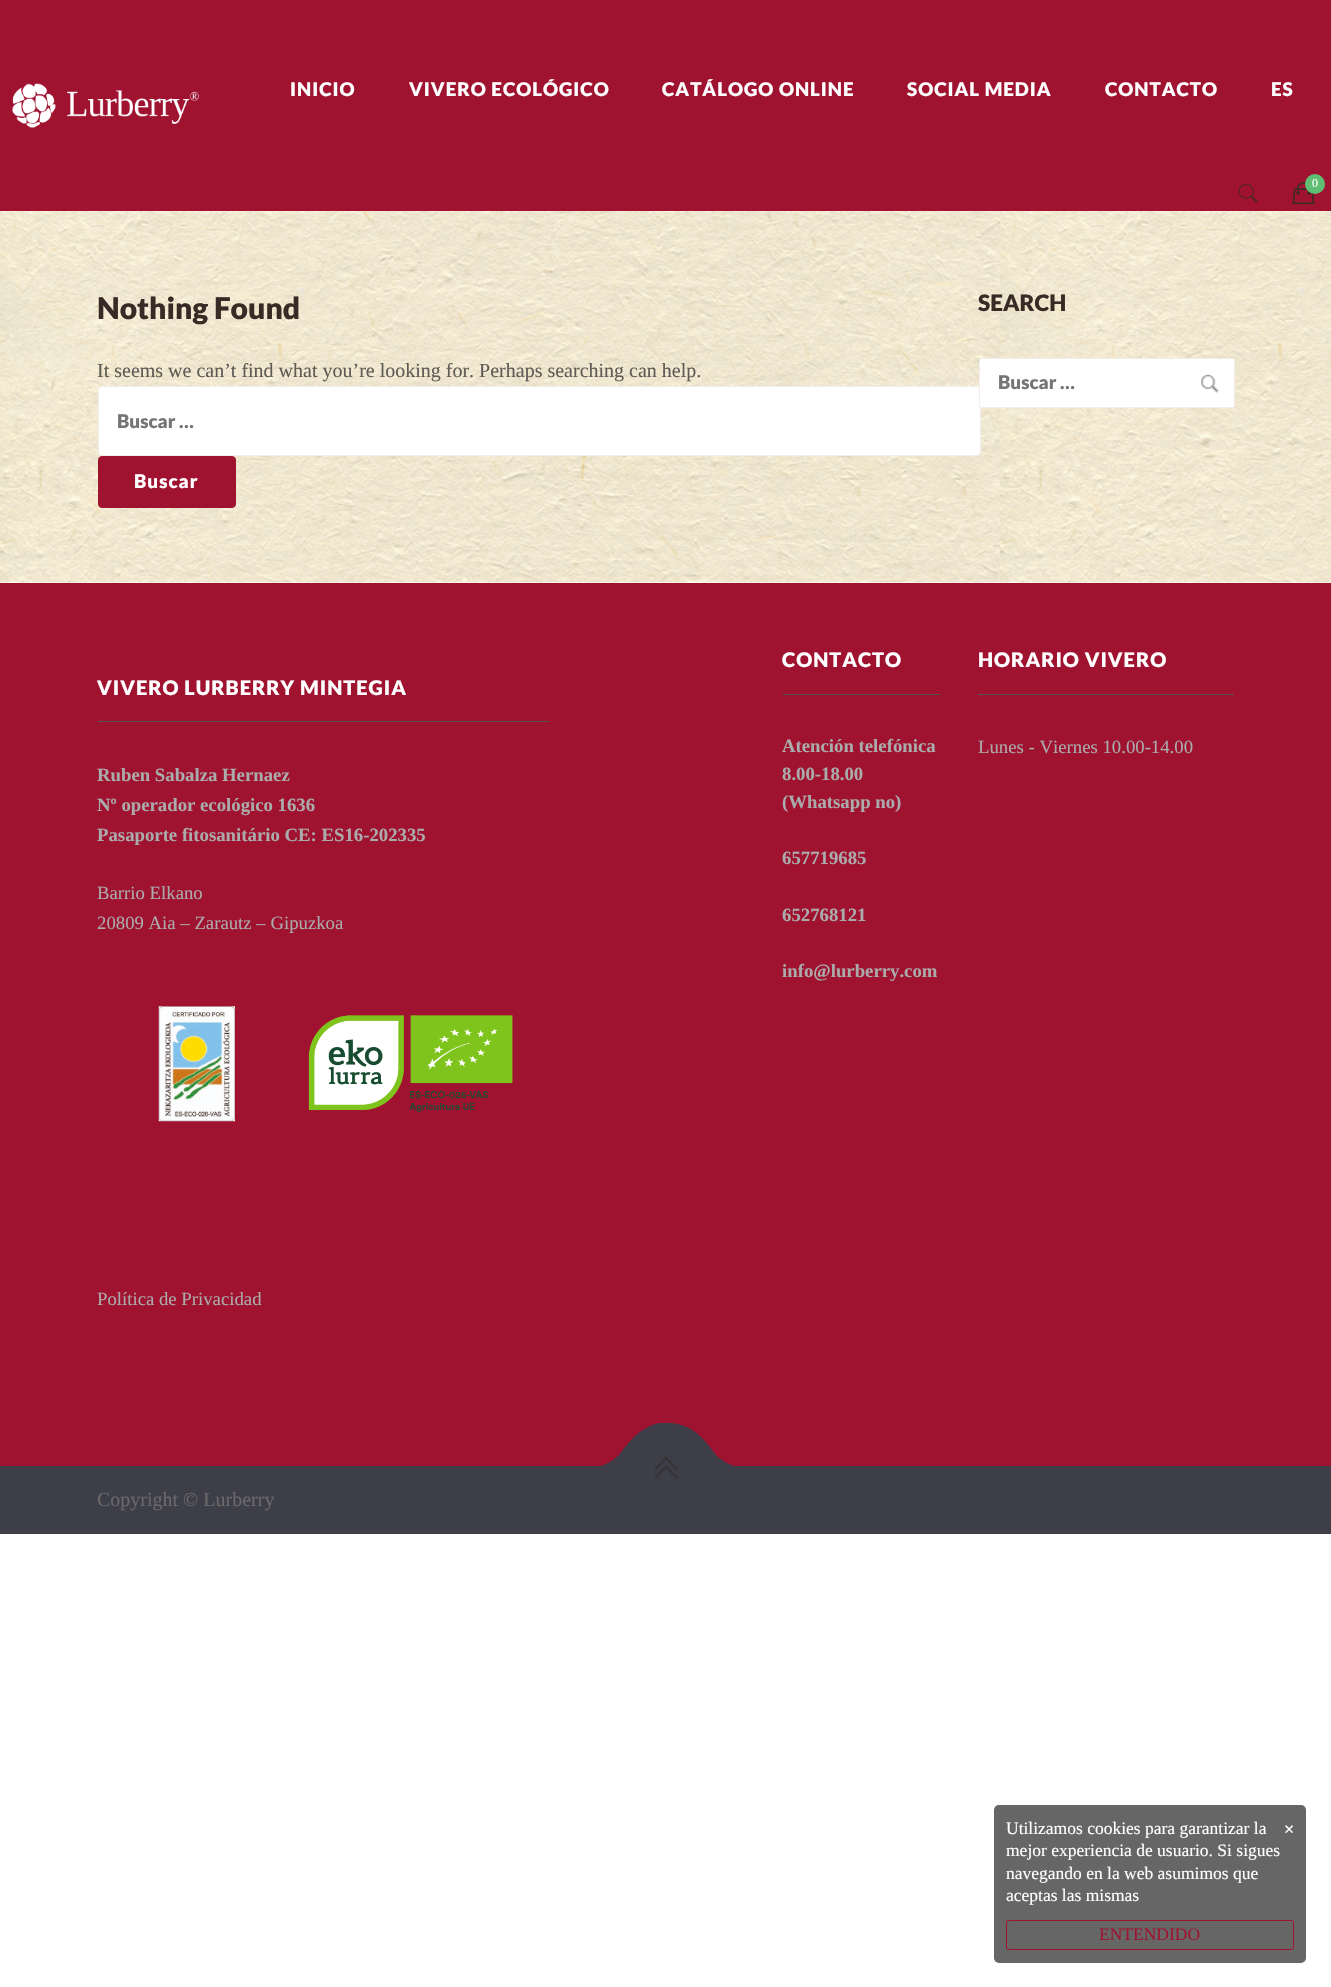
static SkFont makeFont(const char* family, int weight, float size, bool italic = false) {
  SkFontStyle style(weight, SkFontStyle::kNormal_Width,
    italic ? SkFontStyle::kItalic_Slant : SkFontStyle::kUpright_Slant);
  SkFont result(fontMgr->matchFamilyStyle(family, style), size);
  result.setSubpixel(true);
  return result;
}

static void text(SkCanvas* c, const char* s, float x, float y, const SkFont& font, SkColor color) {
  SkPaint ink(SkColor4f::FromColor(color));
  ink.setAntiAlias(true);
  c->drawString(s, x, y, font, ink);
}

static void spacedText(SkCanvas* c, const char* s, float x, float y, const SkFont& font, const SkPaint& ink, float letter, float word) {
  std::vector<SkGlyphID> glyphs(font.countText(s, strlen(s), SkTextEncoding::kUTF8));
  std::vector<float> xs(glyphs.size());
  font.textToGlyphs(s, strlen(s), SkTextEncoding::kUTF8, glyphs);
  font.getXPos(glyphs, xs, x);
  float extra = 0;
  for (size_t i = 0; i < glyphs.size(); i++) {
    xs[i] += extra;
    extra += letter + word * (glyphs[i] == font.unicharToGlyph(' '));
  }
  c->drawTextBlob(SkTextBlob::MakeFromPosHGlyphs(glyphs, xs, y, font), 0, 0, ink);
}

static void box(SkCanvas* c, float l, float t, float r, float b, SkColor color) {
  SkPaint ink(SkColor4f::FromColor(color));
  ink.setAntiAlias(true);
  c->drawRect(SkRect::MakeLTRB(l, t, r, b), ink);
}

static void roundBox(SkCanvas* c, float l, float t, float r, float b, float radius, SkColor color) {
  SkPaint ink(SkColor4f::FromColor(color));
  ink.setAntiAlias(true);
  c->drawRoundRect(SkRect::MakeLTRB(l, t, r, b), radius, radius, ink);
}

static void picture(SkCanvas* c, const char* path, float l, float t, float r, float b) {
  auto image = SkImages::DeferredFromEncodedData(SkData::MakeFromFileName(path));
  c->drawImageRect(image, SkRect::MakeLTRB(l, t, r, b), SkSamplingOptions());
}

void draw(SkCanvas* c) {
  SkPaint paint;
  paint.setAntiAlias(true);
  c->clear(0xffffffff);
  box(c, 0, 0, 1331, 211, 0xff9f1331);
  picture(c, "img_01.png", 12, 83, 199, 128);
  SkFont face1 = makeFont("Lato", 900, 18.75f);
  paint.setColor(0xffffffff);
  spacedText(c, "INICIO", 290, 96, face1, paint, 1, 0);
  spacedText(c, "VIVERO ECOLÓGICO", 409, 96, face1, paint, 1, 0);
  spacedText(c, "CATÁLOGO ONLINE", 662, 96, face1, paint, 1, 0);
  spacedText(c, "SOCIAL MEDIA", 907, 96, face1, paint, 1, 0);
  spacedText(c, "CONTACTO", 1105, 96, face1, paint, 1, 0);
  spacedText(c, "ES", 1271, 96, face1, paint, 1, 0);
  picture(c, "img_02.png", 1238, 183, 1258, 203);
  picture(c, "img_03.png", 1292, 182, 1315, 205);
  paint.setColor(0xff5fbd74);
  c->drawCircle(1315, 184, 10, paint);
  SkFont face2 = makeFont("Liberation Serif", 400, 12);
  text(c, "0", 1312, 187, face2, 0xffffffff);
  picture(c, "img_04.png", 0, 211, 1331, 583);
  SkFont face3 = makeFont("Lato", 900, 30);
  text(c, "Nothing Found", 97, 319, face3, 0xff392a25);
  SkFont face4 = makeFont("Liberation Serif", 400, 20);
  text(c, "It seems we can’t find what you’re looking for. Perhaps searching can help.", 97, 377, face4, 0xff5e5a54);
  paint.setColor(0xffffffff);
  c->drawRoundRect(SkRect::MakeLTRB(98.5f, 386.5f, 980.5f, 455.5f), 3.5f, 3.5f, paint);
  paint.setStyle(SkPaint::kStroke_Style);
  paint.setStrokeWidth(1);
  paint.setColor(0xfff1eeea);
  c->drawRoundRect(SkRect::MakeLTRB(98.5f, 386.5f, 980.5f, 455.5f), 3.5f, 3.5f, paint);
  text(c, "Buscar …", 117, 428, face1, 0xff757575);
  paint.setStyle(SkPaint::kFill_Style);
  paint.setColor(0xff9f1331);
  c->drawRoundRect(SkRect::MakeLTRB(98.5f, 456.5f, 235.5f, 507.5f), 3.5f, 3.5f, paint);
  paint.setStyle(SkPaint::kStroke_Style);
  c->drawRoundRect(SkRect::MakeLTRB(98.5f, 456.5f, 235.5f, 507.5f), 3.5f, 3.5f, paint);
  paint.setStyle(SkPaint::kFill_Style);
  paint.setColor(0xffffffff);
  spacedText(c, "Buscar", 134, 488, face1, paint, 1, 0);
  SkFont face5 = makeFont("Lato", 900, 22.5f);
  text(c, "SEARCH", 978, 311, face5, 0xff392a25);
  c->drawRoundRect(SkRect::MakeLTRB(979.5f, 358.5f, 1234.5f, 407.5f), 2, 2, paint);
  paint.setStyle(SkPaint::kStroke_Style);
  paint.setColor(0xfff1eeea);
  c->drawRoundRect(SkRect::MakeLTRB(979.5f, 358.5f, 1234.5f, 407.5f), 2, 2, paint);
  text(c, "Buscar …", 998, 389, face1, 0xff757575);
  picture(c, "img_05.png", 1200, 374, 1219, 393);
  box(c, 0, 583, 1331, 1466, 0xff9f1331);
  box(c, 98, 721, 549, 722, 0xff545454);
  SkFont face6 = makeFont("Lato", 900, 20);
  paint.setStyle(SkPaint::kFill_Style);
  paint.setColor(0xffffffff);
  spacedText(c, "VIVERO LURBERRY MINTEGIA", 97, 695, face6, paint, 1, 0);
  SkFont face7 = makeFont("Liberation Serif", 700, 18.75f);
  text(c, "Ruben Sabalza Hernaez", 97, 781, face7, 0xffababab);
  text(c, "Nº operador ecológico 1636", 97, 811, face7, 0xffababab);
  text(c, "Pasaporte fitosanitário CE: ES16-202335", 97, 841, face7, 0xffababab);
  SkFont face8 = makeFont("Liberation Serif", 400, 18.75f);
  text(c, "Barrio Elkano", 97, 899, face8, 0xffababab);
  text(c, "20809 Aia – Zarautz – Gipuzkoa", 97, 929, face8, 0xffababab);
  picture(c, "img_06.png", 158, 1006, 235, 1122);
  picture(c, "img_07.png", 308, 1015, 513, 1112);
  text(c, "Política de Privacidad", 97, 1305, face8, 0xffababab);
  box(c, 783, 694, 940, 695, 0xff545454);
  spacedText(c, "CONTACTO", 782, 667, face6, paint, 1, 0);
  text(c, "Atención telefónica", 782, 752, face7, 0xffababab);
  text(c, "8.00-18.00", 782, 780, face7, 0xffababab);
  text(c, "(Whatsapp no)", 782, 808, face7, 0xffababab);
  text(c, "657719685", 782, 864, face7, 0xffababab);
  text(c, "652768121", 782, 921, face7, 0xffababab);
  text(c, "info@lurberry.com", 782, 977, face7, 0xffababab);
  box(c, 978, 694, 1234, 695, 0xff545454);
  spacedText(c, "HORARIO VIVERO", 978, 667, face6, paint, 1, 0);
  text(c, "Lunes - Viernes 10.00-14.00", 978, 753, face8, 0xffababab);
  box(c, 0, 1466, 1331, 1534, 0xff3e3e49);
  c->save();
  c->clipRect(SkRect::MakeLTRB(588, 1423, 746, 1469));
  paint.setColor(0xff3e3e49);
  c->drawPath(SkPathBuilder().moveTo(655, 1424).cubicTo(643, 1428, 632, 1437, 622, 1451).cubicTo(618, 1458, 608, 1464, 598, 1467).cubicTo(592, 1468, 598, 1469, 668, 1469).cubicTo(737, 1469, 743, 1468, 737, 1467).cubicTo(727, 1464, 717, 1458, 713, 1451).cubicTo(705, 1440, 696, 1431, 687, 1427).cubicTo(678, 1423, 664, 1421, 655, 1424).close().detach(), paint);
  c->restore();
  paint.setColor(0xff333333);
  c->drawPath(SkPathBuilder().moveTo(676.5f, 1470.5f).lineTo(666, 1459.5f).lineTo(656, 1470.5f).lineTo(654.5f, 1469).lineTo(666, 1456.5f).lineTo(678, 1469).close().detach(), paint);
  c->drawPath(SkPathBuilder().moveTo(676.5f, 1479).lineTo(666, 1468).lineTo(656, 1479).lineTo(654.5f, 1477.5f).lineTo(666, 1465).lineTo(678, 1477.5f).close().detach(), paint);
  text(c, "Copyright © Lurberry", 97, 1506, face4, 0xff696969);
  roundBox(c, 994, 1805, 1306, 1963, 5, 0xff666666);
  SkFont face9 = makeFont("Liberation Serif", 400, 17.5f);
  text(c, "Utilizamos cookies para garantizar la", 1006, 1834, face9, 0xffffffff);
  text(c, "mejor experiencia de usuario. Si sigues", 1006, 1856, face9, 0xffffffff);
  text(c, "navegando en la web asumimos que", 1006, 1879, face9, 0xffffffff);
  text(c, "aceptas las mismas", 1006, 1901, face9, 0xffffffff);
  paint.setStyle(SkPaint::kStroke_Style);
  paint.setColor(0xff9f1331);
  c->drawRoundRect(SkRect::MakeLTRB(1006.5f, 1920.5f, 1293.5f, 1949.5f), 2, 2, paint);
  text(c, "ENTENDIDO", 1099, 1940, face9, 0xff9f1331);
  SkFont face10 = makeFont("Liberation Sans", 400, 17.5f);
  text(c, "×", 1284, 1835, face10, 0xffffffff);
}
